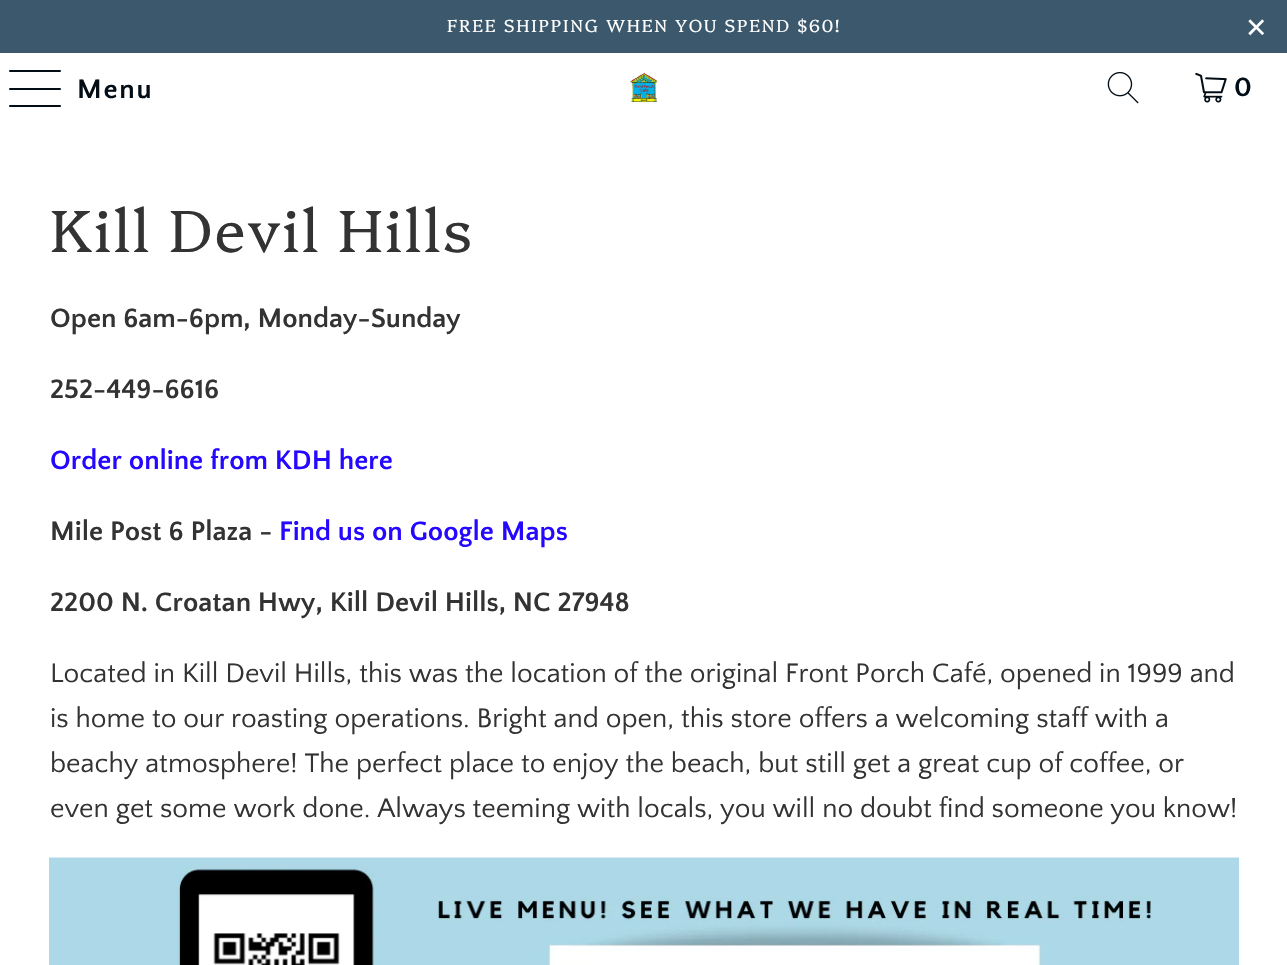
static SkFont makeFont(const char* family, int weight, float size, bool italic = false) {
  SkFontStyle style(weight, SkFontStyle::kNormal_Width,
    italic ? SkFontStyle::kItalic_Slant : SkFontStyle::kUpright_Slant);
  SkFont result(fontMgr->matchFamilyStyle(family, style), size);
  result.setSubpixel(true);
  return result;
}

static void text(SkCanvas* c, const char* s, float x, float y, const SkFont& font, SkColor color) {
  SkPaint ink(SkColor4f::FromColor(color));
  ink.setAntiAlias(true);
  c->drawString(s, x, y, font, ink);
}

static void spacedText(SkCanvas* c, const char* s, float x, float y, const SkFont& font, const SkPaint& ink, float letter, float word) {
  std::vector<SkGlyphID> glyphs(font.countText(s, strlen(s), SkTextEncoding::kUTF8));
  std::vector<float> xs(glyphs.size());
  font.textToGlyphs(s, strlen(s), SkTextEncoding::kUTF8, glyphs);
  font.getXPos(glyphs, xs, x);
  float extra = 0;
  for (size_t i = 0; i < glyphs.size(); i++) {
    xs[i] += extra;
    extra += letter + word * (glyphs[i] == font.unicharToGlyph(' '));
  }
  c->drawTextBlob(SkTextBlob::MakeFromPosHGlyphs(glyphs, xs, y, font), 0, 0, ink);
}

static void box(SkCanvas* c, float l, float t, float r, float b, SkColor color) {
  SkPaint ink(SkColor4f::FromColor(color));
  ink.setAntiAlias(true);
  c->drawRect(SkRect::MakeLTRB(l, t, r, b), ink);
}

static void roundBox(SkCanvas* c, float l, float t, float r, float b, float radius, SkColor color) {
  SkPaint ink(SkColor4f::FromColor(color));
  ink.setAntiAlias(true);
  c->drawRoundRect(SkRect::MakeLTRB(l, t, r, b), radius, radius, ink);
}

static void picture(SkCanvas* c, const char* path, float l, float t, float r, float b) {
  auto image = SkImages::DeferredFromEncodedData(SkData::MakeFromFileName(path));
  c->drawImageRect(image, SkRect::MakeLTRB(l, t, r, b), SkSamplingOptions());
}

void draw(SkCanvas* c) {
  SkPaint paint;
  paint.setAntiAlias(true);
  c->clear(0xffffffff);
  box(c, 0, 0, 1287, 53, 0xff3b586c);
  SkFont face1 = makeFont("Platypi", 300, 17.5f);
  paint.setColor(0xffffffff);
  spacedText(c, "FREE SHIPPING WHEN YOU SPEND $60!", 447, 32, face1, paint, 1.75f, 0);
  SkFont face2 = makeFont("Liberation Sans", 400, 35);
  spacedText(c, "×", 1246, 39, face2, paint, 1.75f, 0);
  roundBox(c, 9, 70, 61, 72, 1, 0xff020d16);
  roundBox(c, 9, 88, 61, 90, 1, 0xff020d16);
  roundBox(c, 9, 105, 61, 107, 1, 0xff020d16);
  SkFont face3 = makeFont("Quattrocento Sans", 700, 28);
  paint.setColor(0xff020d16);
  spacedText(c, "Menu", 77, 98, face3, paint, 1.75f, 0);
  picture(c, "img_01.png", 630, 72, 658, 103);
  picture(c, "img_02.png", 1107, 71, 1139, 104);
  picture(c, "img_03.png", 1195, 72, 1227, 103);
  spacedText(c, "0", 1234, 96, face3, paint, 1.75f, 0);
  SkFont face4 = makeFont("Platypi", 300, 59.5f);
  paint.setColor(0xff333333);
  spacedText(c, "Kill Devil Hills", 50, 252, face4, paint, 1.75f, 0);
  text(c, "Open 6am-6pm, Monday-Sunday", 50, 327, face3, 0xff333333);
  text(c, "252-449-6616", 50, 398, face3, 0xff333333);
  text(c, "Order online from KDH here", 50, 469, face3, 0xff2508ff);
  text(c, "Mile Post 6 Plaza -", 50, 540, face3, 0xff333333);
  text(c, "Find us on Google Maps", 279, 540, face3, 0xff2508ff);
  text(c, "2200 N. Croatan Hwy, Kill Devil Hills, NC 27948", 50, 611, face3, 0xff333333);
  SkFont face5 = makeFont("Quattrocento Sans", 400, 28);
  text(c, "Located in Kill Devil Hills, this was the location of the original Front Porch Café, opened in 1999 and", 50, 682, face5, 0xff333333);
  text(c, "is home to our roasting operations. Bright and open, this store offers a welcoming staff with a", 50, 727, face5, 0xff333333);
  text(c, "beachy atmosphere! The perfect place to enjoy the beach, but still get a great cup of coffee, or", 50, 772, face5, 0xff333333);
  text(c, "even get some work done. Always teeming with locals, you will no doubt find someone you know!", 50, 817, face5, 0xff333333);
  picture(c, "img_04.png", 49, 857, 1239, 965);
}
